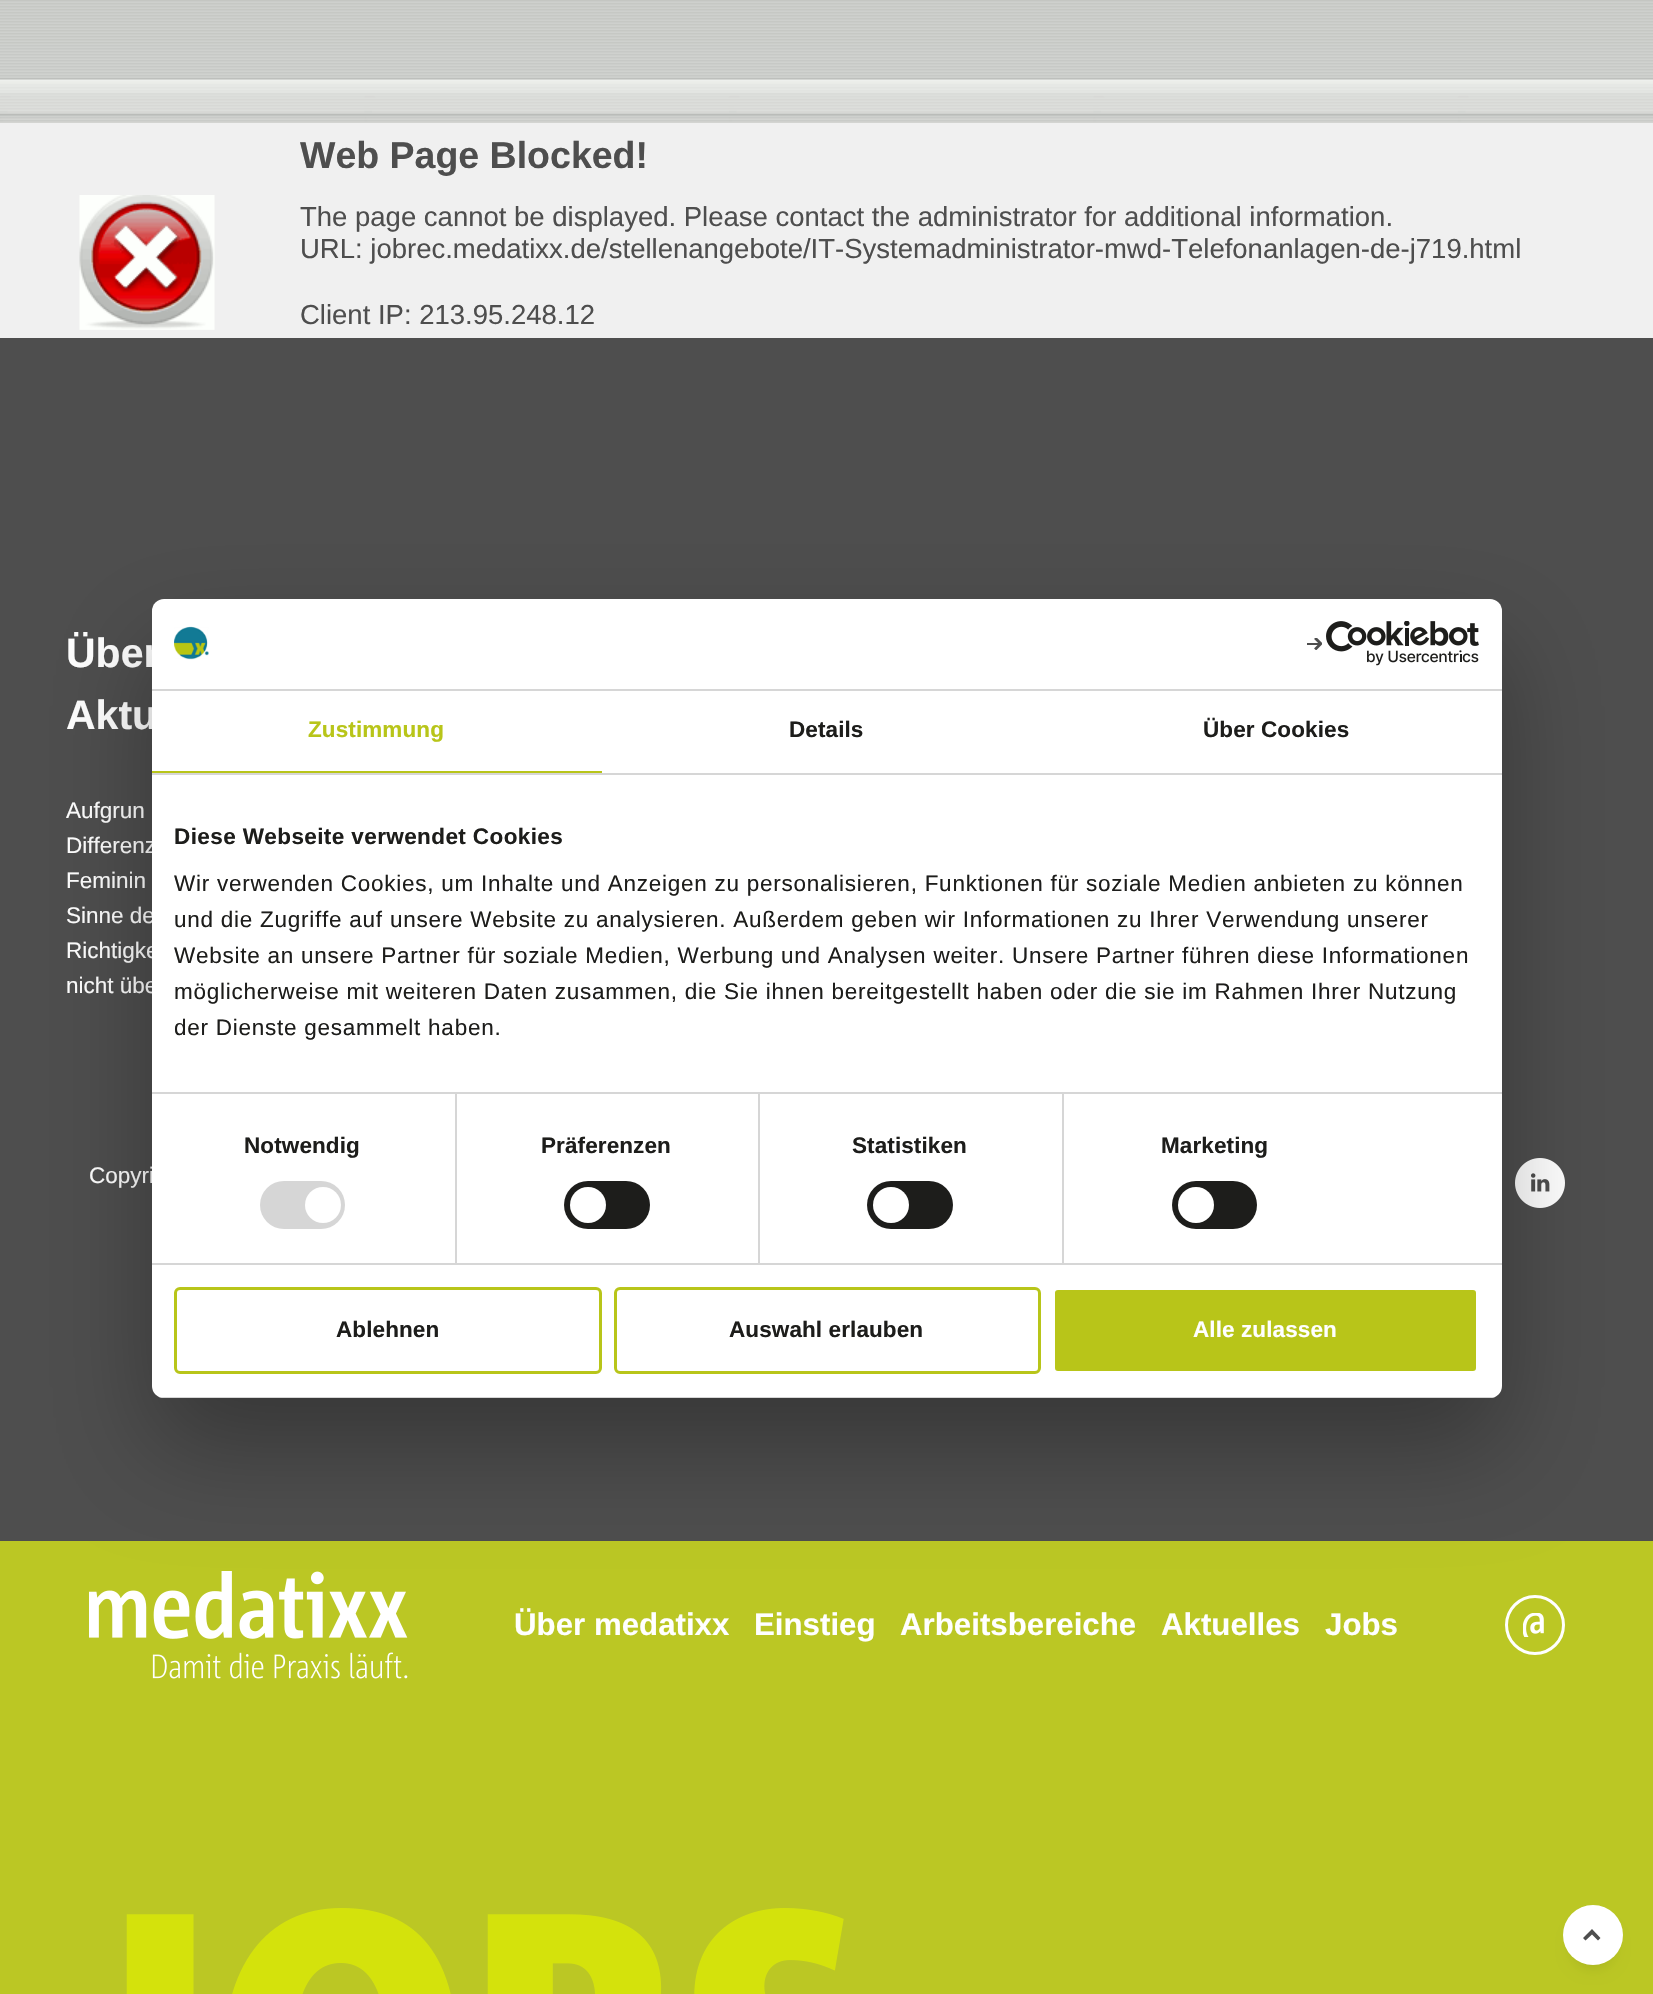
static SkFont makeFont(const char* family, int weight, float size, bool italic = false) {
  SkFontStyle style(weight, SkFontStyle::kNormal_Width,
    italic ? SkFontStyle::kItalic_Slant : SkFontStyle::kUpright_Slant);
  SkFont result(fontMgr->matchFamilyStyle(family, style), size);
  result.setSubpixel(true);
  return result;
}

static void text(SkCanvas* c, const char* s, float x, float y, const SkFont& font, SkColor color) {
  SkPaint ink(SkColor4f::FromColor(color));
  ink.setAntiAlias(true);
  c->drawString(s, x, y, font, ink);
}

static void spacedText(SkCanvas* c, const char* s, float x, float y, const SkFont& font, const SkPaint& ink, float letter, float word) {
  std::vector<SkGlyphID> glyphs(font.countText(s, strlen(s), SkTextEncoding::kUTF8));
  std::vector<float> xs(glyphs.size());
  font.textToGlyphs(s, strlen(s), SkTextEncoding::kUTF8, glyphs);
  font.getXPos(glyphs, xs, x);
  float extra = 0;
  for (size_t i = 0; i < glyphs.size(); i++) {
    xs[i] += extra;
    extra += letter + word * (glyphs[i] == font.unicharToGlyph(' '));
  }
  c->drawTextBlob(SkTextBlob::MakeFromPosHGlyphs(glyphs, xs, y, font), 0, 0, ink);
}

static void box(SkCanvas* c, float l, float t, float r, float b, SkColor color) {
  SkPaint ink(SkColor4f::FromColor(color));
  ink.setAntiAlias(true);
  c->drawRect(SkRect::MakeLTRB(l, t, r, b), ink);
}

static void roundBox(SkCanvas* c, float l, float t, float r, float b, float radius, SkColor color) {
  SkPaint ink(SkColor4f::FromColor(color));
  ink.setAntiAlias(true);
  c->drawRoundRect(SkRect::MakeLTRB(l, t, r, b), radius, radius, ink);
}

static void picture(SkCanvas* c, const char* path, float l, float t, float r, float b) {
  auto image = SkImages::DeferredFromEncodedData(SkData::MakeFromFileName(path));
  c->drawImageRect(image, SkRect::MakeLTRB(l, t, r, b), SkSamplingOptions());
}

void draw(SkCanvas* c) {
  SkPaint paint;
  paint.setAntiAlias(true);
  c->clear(0xfff0f0f0);
  picture(c, "img_01.png", 0, 0, 1653, 123);
  picture(c, "img_02.png", 79, 195, 215, 330);
  SkFont face1 = makeFont("Liberation Sans", 700, 37.5f);
  text(c, "Web Page Blocked!", 300, 168, face1, 0xff4e4e4e);
  SkFont face2 = makeFont("Liberation Sans", 400, 27.5f);
  text(c, "The page cannot be displayed. Please contact the administrator for additional information.", 300, 226, face2, 0xff4e4e4e);
  text(c, "URL: jobrec.medatixx.de/stellenangebote/IT-Systemadministrator-mwd-Telefonanlagen-de-j719.html", 300, 258, face2, 0xff4e4e4e);
  text(c, "Client IP: 213.95.248.12", 300, 324, face2, 0xff4e4e4e);
  box(c, 0, 338, 1653, 1541, 0xff4e4e4e);
  SkFont face3 = makeFont("Liberation Sans", 700, 41);
  text(c, "Über", 66, 667, face3, 0xffffffff);
  text(c, "Aktu", 66, 729, face3, 0xffffffff);
  SkFont face4 = makeFont("Liberation Sans", 400, 22.5f);
  text(c, "Aufgrun", 66, 818, face4, 0xffffffff);
  text(c, "Differenz", 66, 853, face4, 0xffffffff);
  text(c, "Feminin", 66, 888, face4, 0xffffffff);
  text(c, "Sinne de", 66, 923, face4, 0xffffffff);
  text(c, "Richtigke", 66, 958, face4, 0xffffffff);
  text(c, "nicht übe", 66, 993, face4, 0xffffffff);
  text(c, "Copyri", 89, 1183, face4, 0xffffffff);
  picture(c, "img_03.png", 1515, 1158, 1565, 1208);
  box(c, 0, 1541, 1653, 1994, 0xffbbc724);
  picture(c, "img_08.png", 89, 1571, 408, 1679);
  paint.setStyle(SkPaint::kStroke_Style);
  paint.setStrokeWidth(3);
  paint.setColor(0xffffffff);
  c->drawCircle(1535, 1625, 28.5f, paint);
  paint.setStyle(SkPaint::kFill_Style);
  paint.setColor(0x4d000000);
  paint.setMaskFilter(SkMaskFilter::MakeBlur(kNormal_SkBlurStyle, 51));
  c->drawRoundRect(SkRect::MakeLTRB(152, 647, 1502, 1446), 12, 12, paint);
  paint.setMaskFilter(nullptr);
  roundBox(c, 152, 599, 1502, 1398, 12, 0xffffffff);
  box(c, 152, 689, 1502, 691, 0xffd6d6d6);
  picture(c, "img_04.png", 174, 626, 209, 660);
  picture(c, "img_05.png", 1307, 638, 1322, 650);
  picture(c, "img_06.png", 1326, 621, 1479, 666);
  box(c, 152, 773, 1502, 775, 0xffd6d6d6);
  box(c, 152, 771, 602, 773, 0xffb8c519);
  SkFont face5 = makeFont("Liberation Sans", 700, 22.5f);
  paint.setColor(0xffb8c519);
  spacedText(c, "Zustimmung", 308, 737, face5, paint, 0.1f, 0);
  paint.setColor(0xff1d1d1b);
  spacedText(c, "Details", 789, 737, face5, paint, 0.1f, 0);
  spacedText(c, "Über Cookies", 1203, 737, face5, paint, 0.1f, 0);
  box(c, 152, 1092, 1502, 1094, 0xffd6d6d6);
  spacedText(c, "Diese Webseite verwendet Cookies", 174, 844, face5, paint, 0.4f, 0);
  spacedText(c, "Wir verwenden Cookies, um Inhalte und Anzeigen zu personalisieren, Funktionen für soziale Medien anbieten zu können", 174, 891, face4, paint, 0.75f, 0);
  spacedText(c, "und die Zugriffe auf unsere Website zu analysieren. Außerdem geben wir Informationen zu Ihrer Verwendung unserer", 174, 927, face4, paint, 0.75f, 0);
  spacedText(c, "Website an unsere Partner für soziale Medien, Werbung und Analysen weiter. Unsere Partner führen diese Informationen", 174, 963, face4, paint, 0.75f, 0);
  spacedText(c, "möglicherweise mit weiteren Daten zusammen, die Sie ihnen bereitgestellt haben oder die sie im Rahmen Ihrer Nutzung", 174, 999, face4, paint, 0.75f, 0);
  spacedText(c, "der Dienste gesammelt haben.", 174, 1035, face4, paint, 0.75f, 0);
  box(c, 152, 1263, 1502, 1265, 0xffd6d6d6);
  box(c, 455, 1094, 457, 1263, 0xffd6d6d6);
  spacedText(c, "Notwendig", 244, 1153, face5, paint, 0.1f, 0);
  roundBox(c, 260, 1181, 345, 1229, 24, 0xffd6d6d6);
  paint.setColor(0xffffffff);
  c->drawCircle(323, 1205, 18, paint);
  box(c, 758, 1094, 760, 1263, 0xffd6d6d6);
  paint.setColor(0xff1d1d1b);
  spacedText(c, "Präferenzen", 541, 1153, face5, paint, 0.1f, 0);
  roundBox(c, 564, 1181, 650, 1229, 24, 0xff1d1d1b);
  paint.setColor(0xffffffff);
  c->drawCircle(588, 1205, 18, paint);
  box(c, 1062, 1094, 1064, 1263, 0xffd6d6d6);
  paint.setColor(0xff1d1d1b);
  spacedText(c, "Statistiken", 852, 1153, face5, paint, 0.1f, 0);
  roundBox(c, 867, 1181, 953, 1229, 24, 0xff1d1d1b);
  paint.setColor(0xffffffff);
  c->drawCircle(891, 1205, 18, paint);
  paint.setColor(0xff1d1d1b);
  spacedText(c, "Marketing", 1161, 1153, face5, paint, 0.1f, 0);
  roundBox(c, 1172, 1181, 1257, 1229, 24, 0xff1d1d1b);
  paint.setColor(0xffffffff);
  c->drawCircle(1196, 1205, 18, paint);
  c->save();
  c->clipPath(SkPathBuilder().moveTo(164, 599).lineTo(1490, 599).cubicTo(1496.5f, 599, 1502, 604.5f, 1502, 611).lineTo(1502, 1386).cubicTo(1502, 1392.5f, 1496.5f, 1398, 1490, 1398).lineTo(164, 1398).cubicTo(157.5f, 1398, 152, 1392.5f, 152, 1386).lineTo(152, 611).cubicTo(152, 604.5f, 157.5f, 599, 164, 599).close().detach(), true);
  box(c, 152, 1397, 1502, 1398, 0xffd6d6d6);
  c->restore();
  paint.setStyle(SkPaint::kStroke_Style);
  paint.setColor(0xffb8c519);
  c->drawRoundRect(SkRect::MakeLTRB(175.5f, 1288.5f, 600.5f, 1372.5f), 4.5f, 4.5f, paint);
  paint.setStyle(SkPaint::kFill_Style);
  paint.setColor(0xff1d1d1b);
  spacedText(c, "Ablehnen", 336, 1337, face5, paint, 0.1f, 0);
  paint.setStyle(SkPaint::kStroke_Style);
  paint.setColor(0xffb8c519);
  c->drawRoundRect(SkRect::MakeLTRB(615.5f, 1288.5f, 1039.5f, 1372.5f), 4.5f, 4.5f, paint);
  paint.setStyle(SkPaint::kFill_Style);
  paint.setColor(0xff1d1d1b);
  spacedText(c, "Auswahl erlauben", 729, 1337, face5, paint, 0.1f, 0);
  paint.setColor(0xffb8c519);
  c->drawRoundRect(SkRect::MakeLTRB(1053.5f, 1288.5f, 1477.5f, 1372.5f), 4.5f, 4.5f, paint);
  paint.setStyle(SkPaint::kStroke_Style);
  paint.setColor(0xffffffff);
  c->drawRoundRect(SkRect::MakeLTRB(1053.5f, 1288.5f, 1477.5f, 1372.5f), 4.5f, 4.5f, paint);
  paint.setStyle(SkPaint::kFill_Style);
  spacedText(c, "Alle zulassen", 1193, 1337, face5, paint, 0.1f, 0);
  picture(c, "img_07.png", 126, 1908, 844, 1994);
  SkFont face6 = makeFont("Liberation Sans", 700, 31.25f);
  text(c, "Über medatixx", 514, 1635, face6, 0xffffffff);
  text(c, "Einstieg", 754, 1635, face6, 0xffffffff);
  text(c, "Arbeitsbereiche", 900, 1635, face6, 0xffffffff);
  text(c, "Aktuelles", 1161, 1635, face6, 0xffffffff);
  text(c, "Jobs", 1325, 1635, face6, 0xffffffff);
  picture(c, "img_09.png", 1523, 1613, 1544, 1637);
  paint.setColor(0x1a000000);
  paint.setMaskFilter(SkMaskFilter::MakeBlur(kNormal_SkBlurStyle, 7.5f));
  c->drawRoundRect(SkRect::MakeLTRB(1572, 1926, 1614, 1968), 21, 21, paint);
  paint.setMaskFilter(nullptr);
  paint.setColor(0xffffffff);
  c->drawCircle(1593, 1935, 30, paint);
  paint.setColor(0xff4e4e4e);
  c->drawPath(SkPathBuilder().moveTo(1592, 1929).lineTo(1600.5f, 1938).lineTo(1598, 1940.5f).lineTo(1592, 1934.5f).lineTo(1585.5f, 1940.5f).lineTo(1583, 1938).close().detach(), paint);
}
